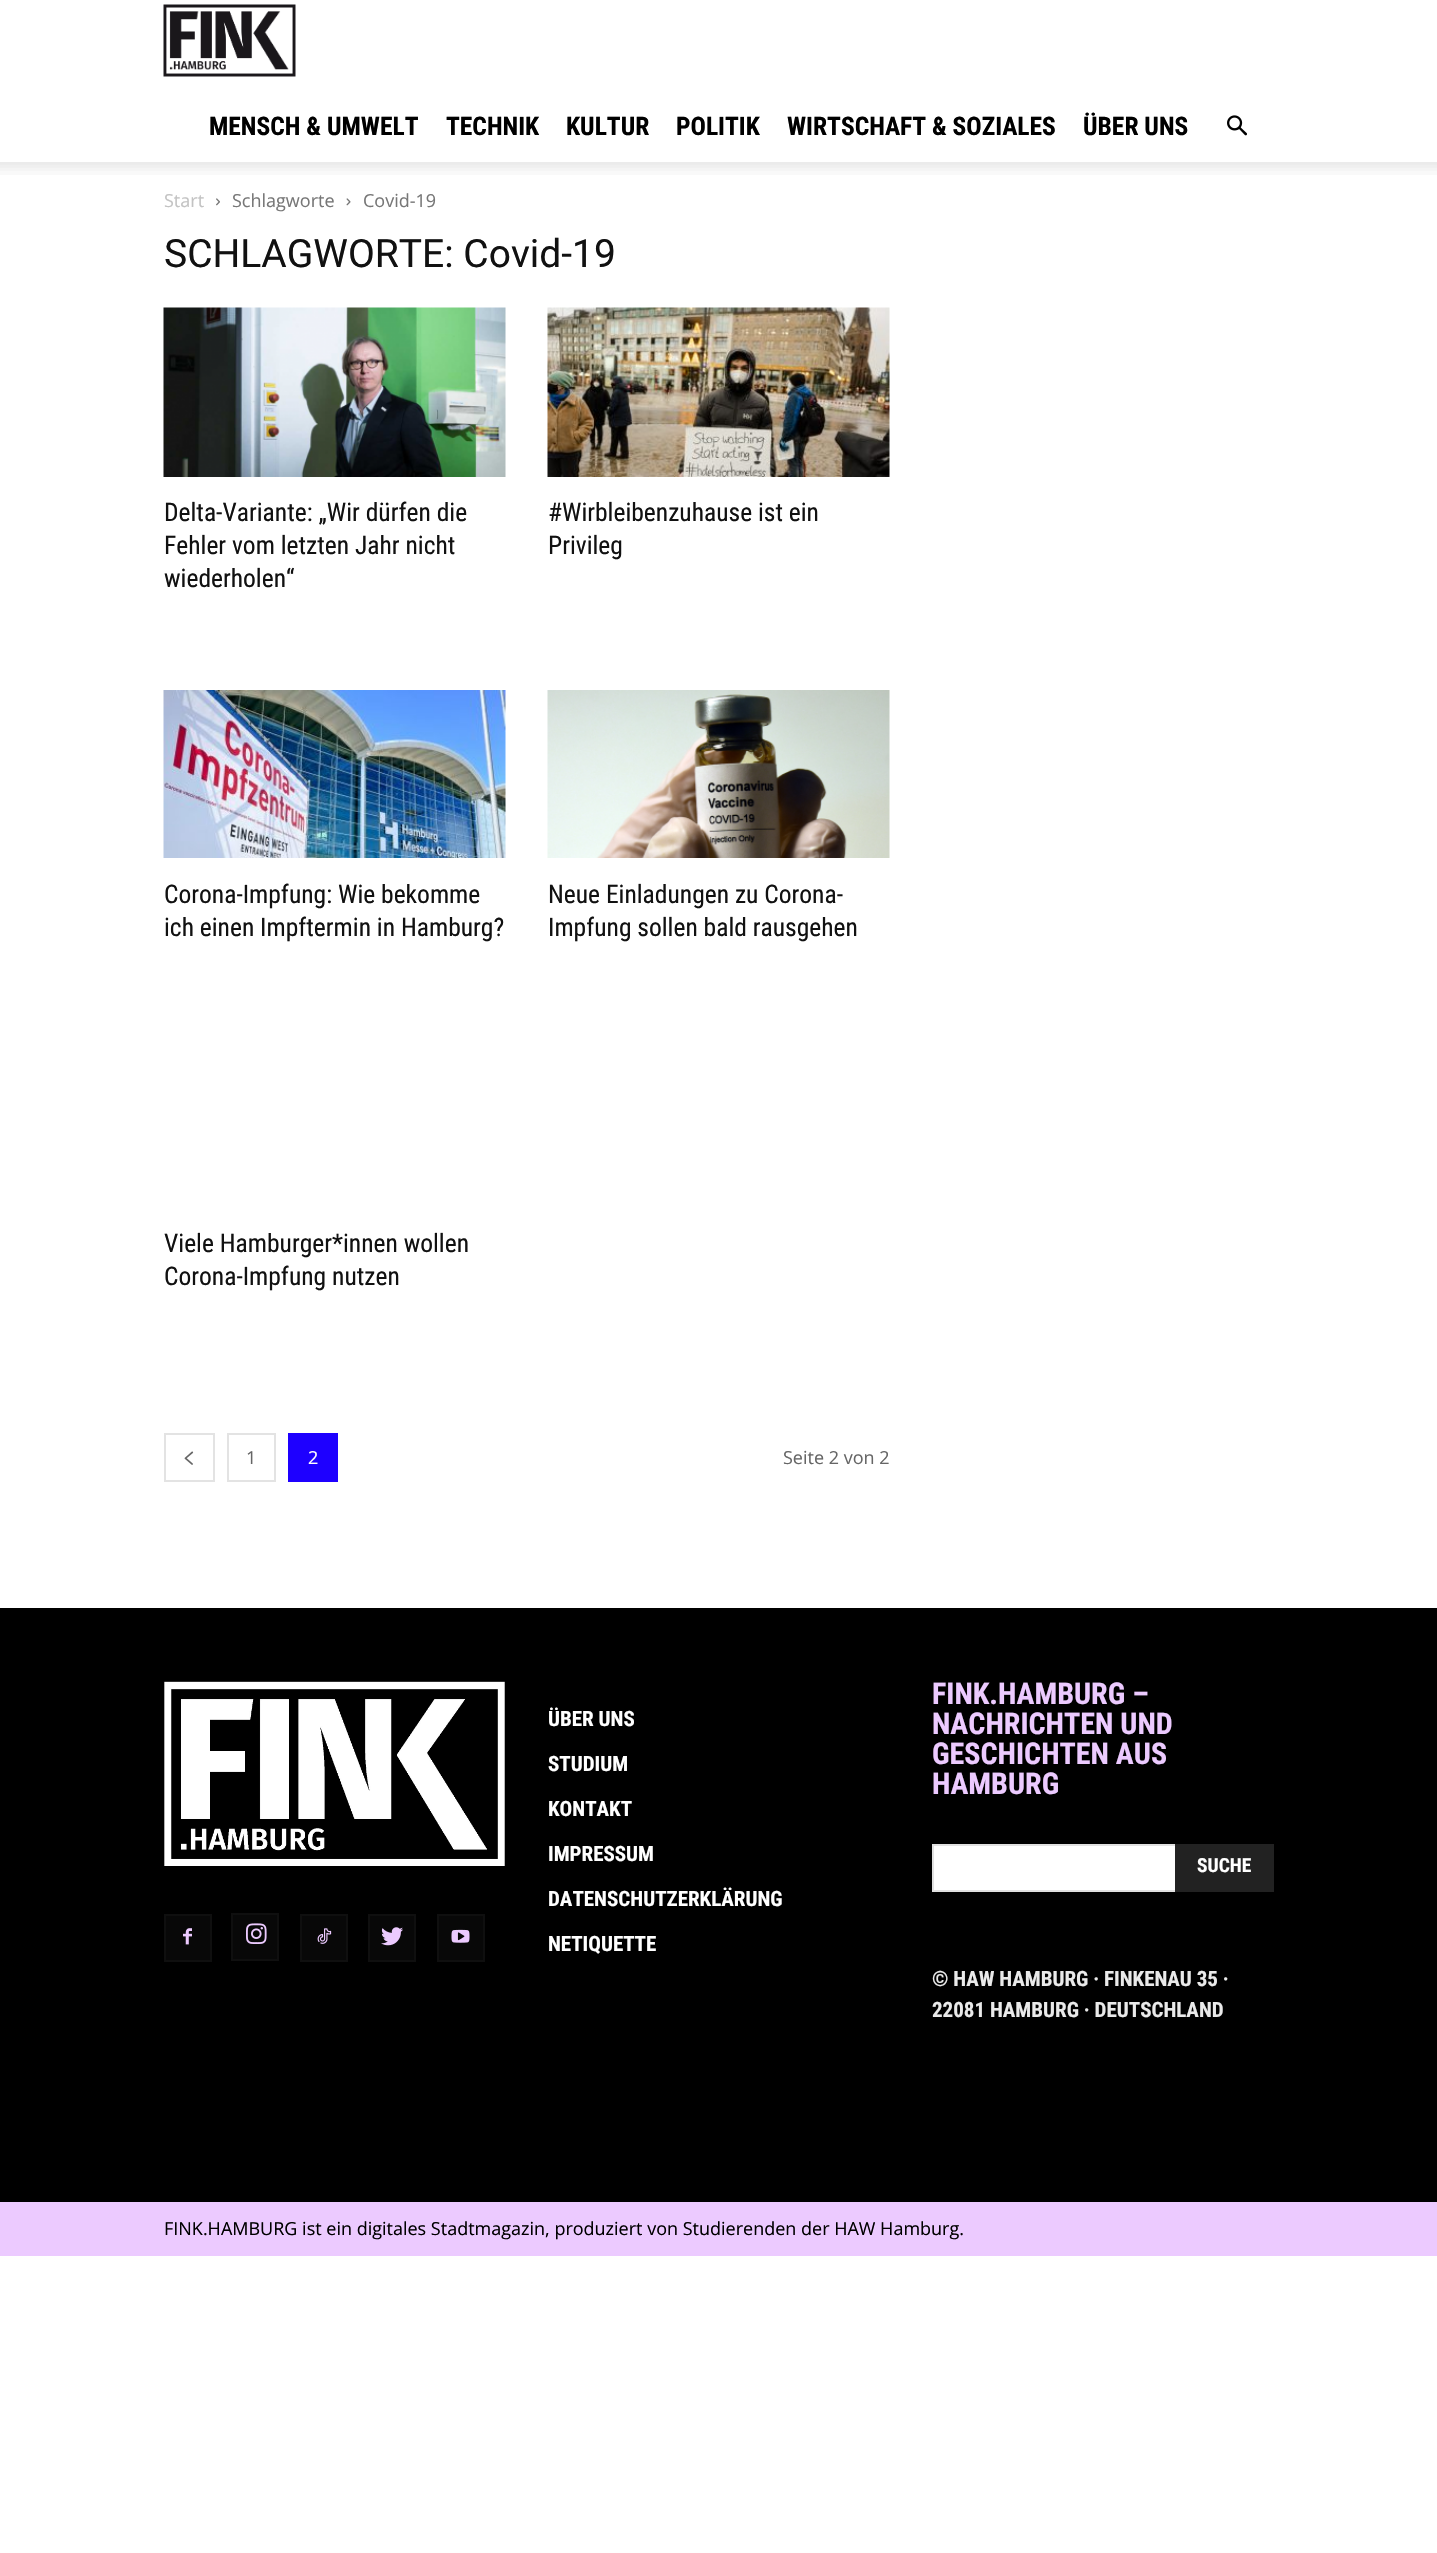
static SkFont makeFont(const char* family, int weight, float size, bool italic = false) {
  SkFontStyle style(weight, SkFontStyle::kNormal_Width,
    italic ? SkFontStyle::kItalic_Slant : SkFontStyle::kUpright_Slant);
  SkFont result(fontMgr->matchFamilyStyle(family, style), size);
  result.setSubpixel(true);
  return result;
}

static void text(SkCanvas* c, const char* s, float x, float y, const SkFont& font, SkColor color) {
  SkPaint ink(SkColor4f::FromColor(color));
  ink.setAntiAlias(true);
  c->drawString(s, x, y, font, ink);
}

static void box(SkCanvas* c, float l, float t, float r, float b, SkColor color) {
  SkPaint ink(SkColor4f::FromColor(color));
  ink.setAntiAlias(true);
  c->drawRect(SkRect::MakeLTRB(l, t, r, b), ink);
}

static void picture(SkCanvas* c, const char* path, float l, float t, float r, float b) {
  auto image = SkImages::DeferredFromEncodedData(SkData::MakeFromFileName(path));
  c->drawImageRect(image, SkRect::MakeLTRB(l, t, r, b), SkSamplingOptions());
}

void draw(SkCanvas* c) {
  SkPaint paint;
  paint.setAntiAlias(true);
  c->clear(0xffffffff);
  picture(c, "img_01.png", 163, 4, 296, 77);
  SkFont face1 = makeFont("Roboto Condensed", 700, 25.5f);
  text(c, "MENSCH & UMWELT", 209, 135, face1, 0xff000000);
  text(c, "TECHNIK", 446, 135, face1, 0xff000000);
  text(c, "KULTUR", 566, 135, face1, 0xff000000);
  text(c, "POLITIK", 676, 135, face1, 0xff000000);
  text(c, "WIRTSCHAFT & SOZIALES", 787, 135, face1, 0xff000000);
  text(c, "ÜBER UNS", 1083, 135, face1, 0xff000000);
  picture(c, "img_02.png", 1227, 115, 1247, 136);
  picture(c, "img_03.png", 0, 162, 1437, 175);
  SkFont face2 = makeFont("Open Sans", 400, 18);
  text(c, "Start", 164, 207, face2, 0xffc3c3c3);
  picture(c, "img_04.png", 216, 198, 220, 206);
  text(c, "Schlagworte", 232, 207, face2, 0xff777777);
  picture(c, "img_05.png", 346, 198, 351, 206);
  text(c, "Covid-19", 363, 207, face2, 0xff777777);
  SkFont face3 = makeFont("Roboto", 400, 39);
  text(c, "SCHLAGWORTE: Covid-19", 164, 267, face3, 0xff111111);
  picture(c, "img_06.png", 163, 307, 506, 477);
  SkFont face4 = makeFont("Roboto Condensed", 400, 25.5f);
  text(c, "Delta-Variante: „Wir dürfen die", 164, 521, face4, 0xff111111);
  text(c, "Fehler vom letzten Jahr nicht", 164, 554, face4, 0xff111111);
  text(c, "wiederholen“", 164, 587, face4, 0xff111111);
  picture(c, "img_07.png", 547, 307, 890, 477);
  text(c, "#Wirbleibenzuhause ist ein", 548, 521, face4, 0xff111111);
  text(c, "Privileg", 548, 554, face4, 0xff111111);
  picture(c, "img_08.png", 163, 690, 506, 858);
  text(c, "Corona-Impfung: Wie bekomme", 164, 903, face4, 0xff111111);
  text(c, "ich einen Impftermin in Hamburg?", 164, 936, face4, 0xff111111);
  picture(c, "img_09.png", 547, 690, 890, 858);
  text(c, "Neue Einladungen zu Corona-", 548, 903, face4, 0xff111111);
  text(c, "Impfung sollen bald rausgehen", 548, 936, face4, 0xff111111);
  text(c, "Viele Hamburger*innen wollen", 164, 1252, face4, 0xff111111);
  text(c, "Corona-Impfung nutzen", 164, 1285, face4, 0xff111111);
  paint.setStyle(SkPaint::kStroke_Style);
  paint.setStrokeWidth(2);
  paint.setColor(0xffe3e3e3);
  c->drawRect(SkRect::MakeLTRB(165, 1434, 214, 1481), paint);
  picture(c, "img_10.png", 184, 1451, 194, 1465);
  c->drawRect(SkRect::MakeLTRB(228, 1434, 275, 1481), paint);
  text(c, "1", 246, 1464, face2, 0xff666666);
  box(c, 288, 1433, 338, 1482, 0xff1e00ff);
  text(c, "2", 308, 1464, face2, 0xffffffff);
  text(c, "Seite 2 von 2", 783, 1464, face2, 0xff666666);
  box(c, 0, 1608, 1437, 2202, 0xff000000);
  picture(c, "img_11.png", 164, 1681, 505, 1866);
  box(c, 166, 1916, 210, 1960, 0xff080808);
  picture(c, "img_12.png", 183, 1928, 192, 1945);
  paint.setColor(0xff0f0f0f);
  c->drawRect(SkRect::MakeLTRB(165, 1915, 211, 1961), paint);
  box(c, 233, 1915, 277, 1959, 0xff080808);
  picture(c, "img_13.png", 246, 1923, 267, 1944);
  c->drawRect(SkRect::MakeLTRB(232, 1914, 278, 1960), paint);
  box(c, 302, 1916, 346, 1960, 0xff080808);
  picture(c, "img_14.png", 317, 1928, 332, 1944);
  c->drawRect(SkRect::MakeLTRB(301, 1915, 347, 1961), paint);
  box(c, 370, 1916, 414, 1960, 0xff080808);
  picture(c, "img_15.png", 381, 1927, 403, 1946);
  c->drawRect(SkRect::MakeLTRB(369, 1915, 415, 1961), paint);
  box(c, 439, 1916, 483, 1960, 0xff080808);
  picture(c, "img_16.png", 451, 1929, 470, 1943);
  c->drawRect(SkRect::MakeLTRB(438, 1915, 484, 1961), paint);
  SkFont face5 = makeFont("Roboto Condensed", 700, 21);
  text(c, "ÜBER UNS", 548, 1726, face5, 0xffffffff);
  text(c, "STUDIUM", 548, 1771, face5, 0xffffffff);
  text(c, "KONTAKT", 548, 1816, face5, 0xffffffff);
  text(c, "IMPRESSUM", 548, 1861, face5, 0xffffffff);
  text(c, "DATENSCHUTZERKLÄRUNG", 548, 1906, face5, 0xffffffff);
  text(c, "NETIQUETTE", 548, 1951, face5, 0xffffffff);
  SkFont face6 = makeFont("Roboto Condensed", 700, 30);
  text(c, "FINK.HAMBURG –", 932, 1704, face6, 0xffeccaff);
  text(c, "NACHRICHTEN UND", 932, 1734, face6, 0xffeccaff);
  text(c, "GESCHICHTEN AUS", 932, 1764, face6, 0xffeccaff);
  text(c, "HAMBURG", 932, 1794, face6, 0xffeccaff);
  box(c, 934, 1846, 1175, 1890, 0xffffffff);
  box(c, 932, 1844, 1175, 1846, 0xffe1e1e1);
  box(c, 932, 1890, 1175, 1892, 0xffe1e1e1);
  box(c, 932, 1844, 934, 1892, 0xffe1e1e1);
  box(c, 1175, 1844, 1274, 1892, 0xff222222);
  SkFont face7 = makeFont("Roboto Condensed", 700, 19.5f);
  text(c, "SUCHE", 1197, 1872, face7, 0xffffffff);
  text(c, "© HAW HAMBURG · FINKENAU 35 ·", 932, 1986, face5, 0xffeaeaea);
  text(c, "22081 HAMBURG · DEUTSCHLAND", 932, 2017, face5, 0xffeaeaea);
  box(c, 0, 2202, 1437, 2256, 0xffeccaff);
  text(c, "FINK.HAMBURG ist ein digitales Stadtmagazin, produziert von Studierenden der HAW Hamburg.", 164, 2235, face2, 0xff000000);
}
